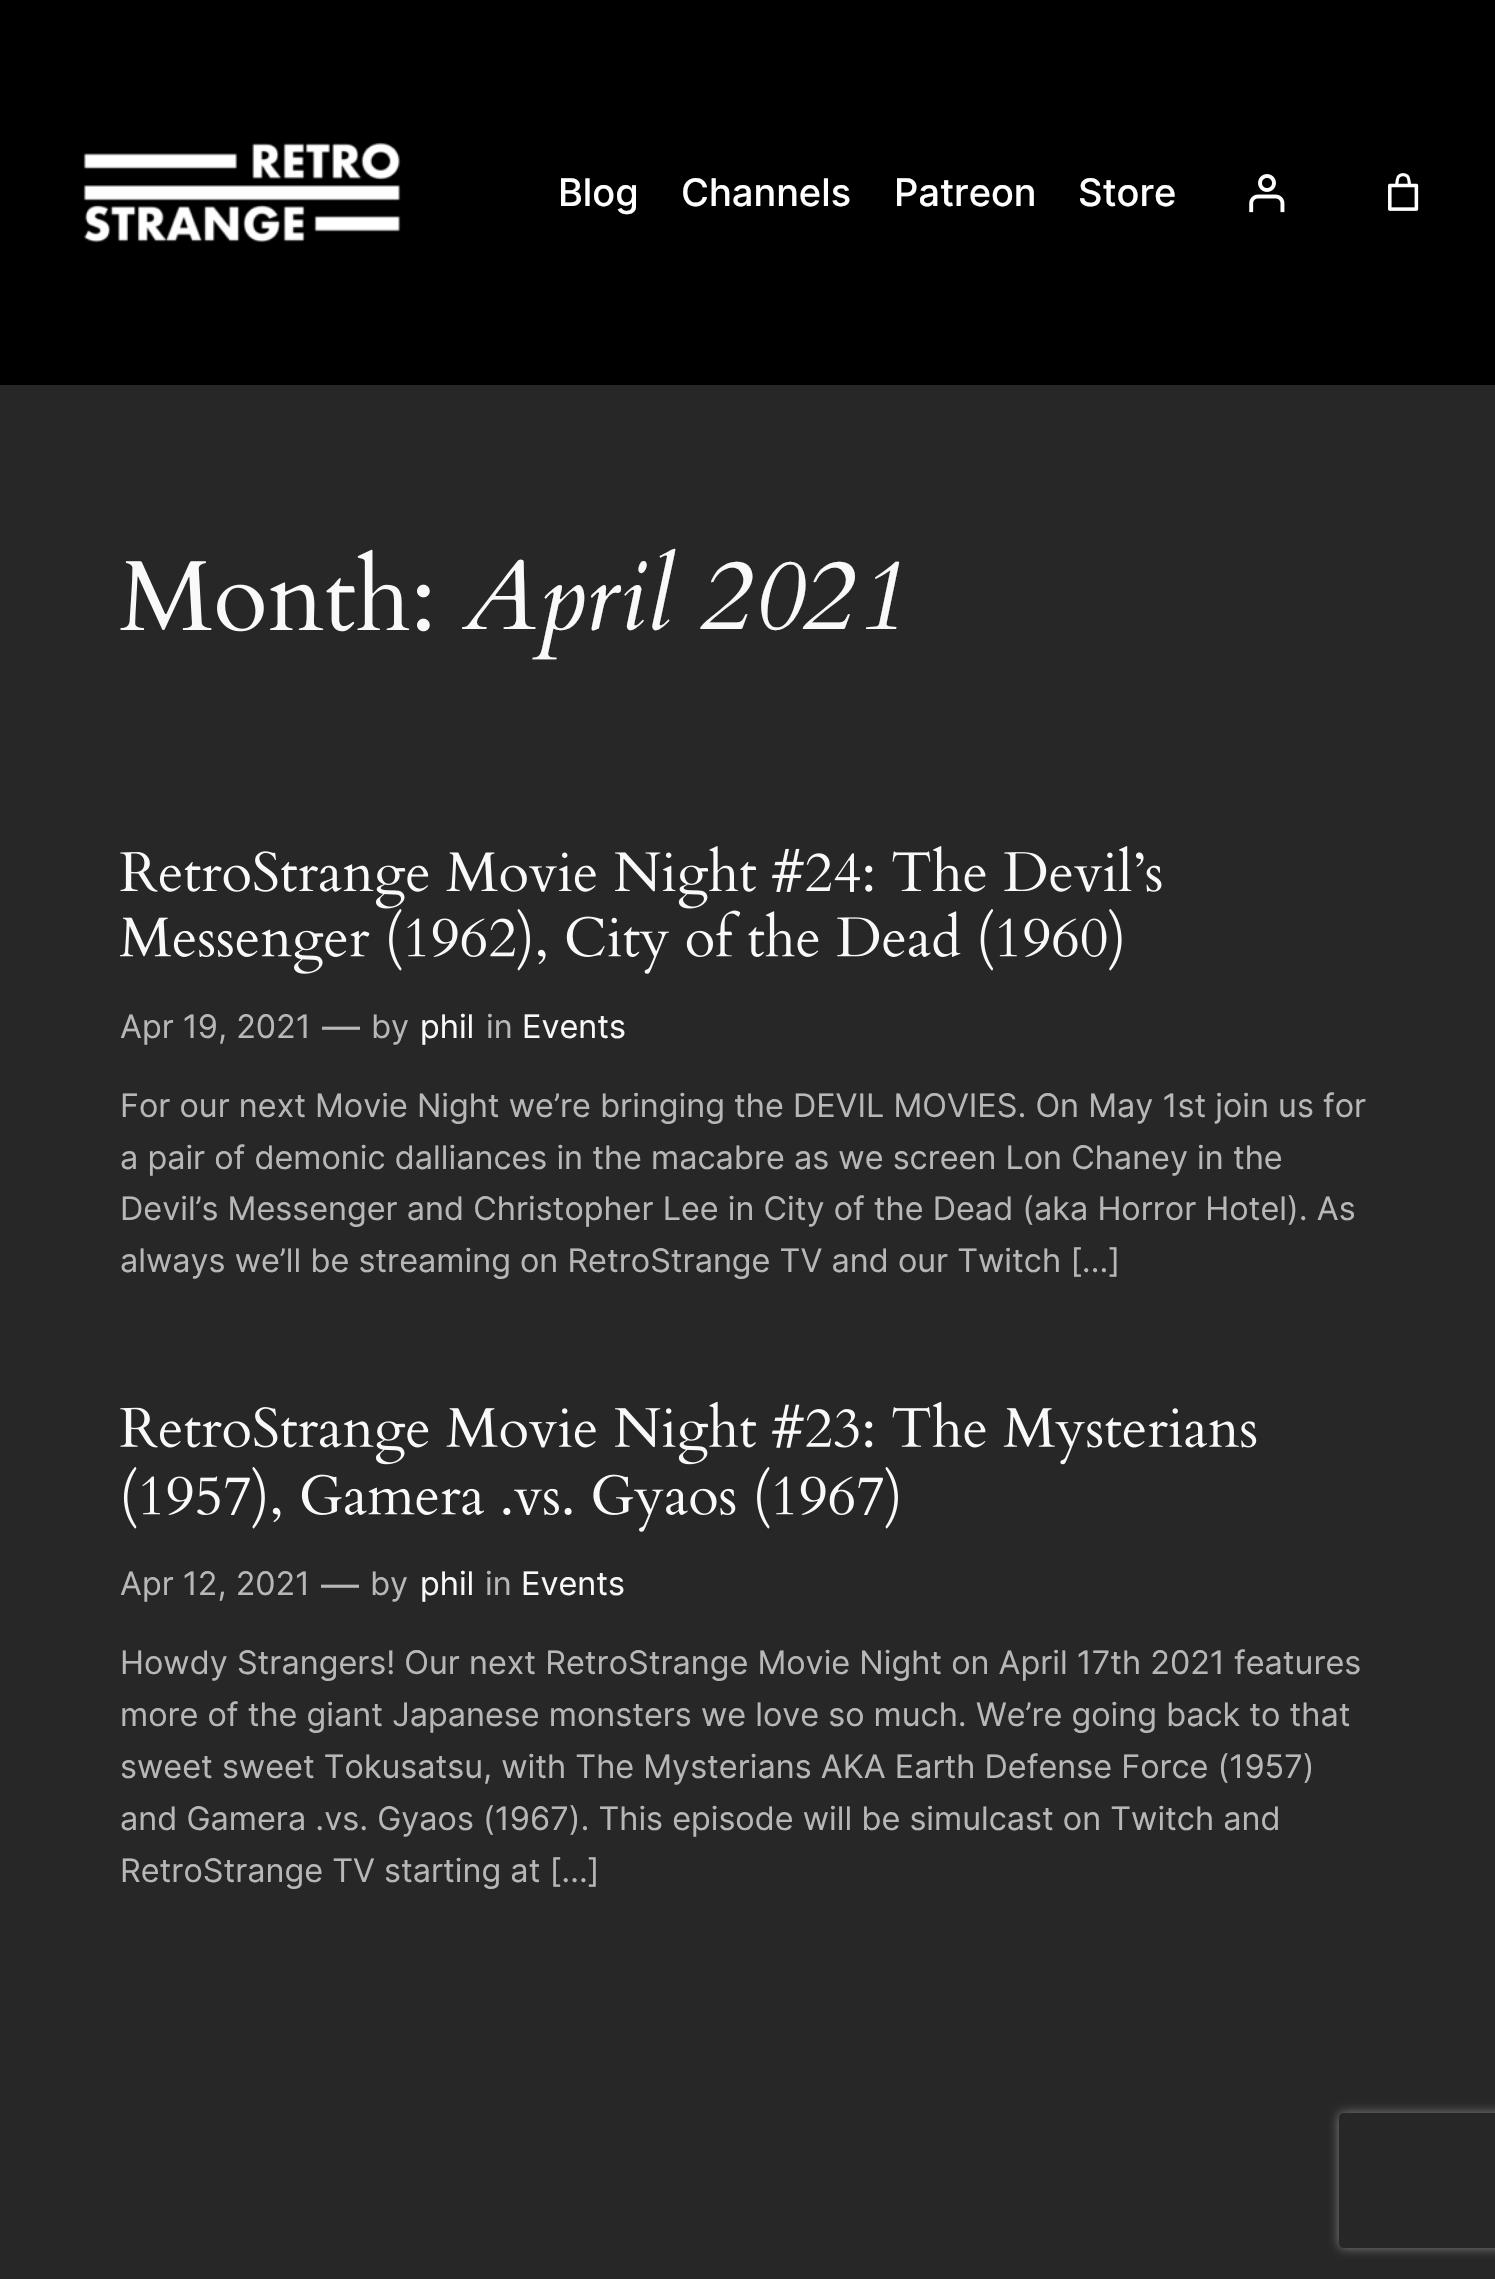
static SkFont makeFont(const char* family, int weight, float size, bool italic = false) {
  SkFontStyle style(weight, SkFontStyle::kNormal_Width,
    italic ? SkFontStyle::kItalic_Slant : SkFontStyle::kUpright_Slant);
  SkFont result(fontMgr->matchFamilyStyle(family, style), size);
  result.setSubpixel(true);
  return result;
}

static void text(SkCanvas* c, const char* s, float x, float y, const SkFont& font, SkColor color) {
  SkPaint ink(SkColor4f::FromColor(color));
  ink.setAntiAlias(true);
  c->drawString(s, x, y, font, ink);
}

static void box(SkCanvas* c, float l, float t, float r, float b, SkColor color) {
  SkPaint ink(SkColor4f::FromColor(color));
  ink.setAntiAlias(true);
  c->drawRect(SkRect::MakeLTRB(l, t, r, b), ink);
}

static void picture(SkCanvas* c, const char* path, float l, float t, float r, float b) {
  auto image = SkImages::DeferredFromEncodedData(SkData::MakeFromFileName(path));
  c->drawImageRect(image, SkRect::MakeLTRB(l, t, r, b), SkSamplingOptions());
}

void draw(SkCanvas* c) {
  SkPaint paint;
  paint.setAntiAlias(true);
  c->clear(0xff272727);
  box(c, 0, 0, 1495, 385, 0xff000000);
  picture(c, "img_01.png", 83, 142, 401, 243);
  SkFont face1 = makeFont("Inter", 500, 38);
  text(c, "Blog", 558, 206, face1, 0xffffffff);
  text(c, "Channels", 681, 206, face1, 0xffffffff);
  text(c, "Patreon", 894, 206, face1, 0xffffffff);
  text(c, "Store", 1078, 206, face1, 0xffffffff);
  picture(c, "img_02.png", 1249, 174, 1285, 213);
  picture(c, "img_03.png", 1388, 173, 1419, 211);
  picture(c, "img_04.png", 120, 549, 430, 632);
  SkFont face2 = makeFont("Cardo", 400, 100, true);
  text(c, "April 2021", 463, 629, face2, 0xfff9f9f9);
  picture(c, "img_05.png", 120, 846, 1162, 909);
  picture(c, "img_06.png", 119, 909, 1122, 974);
  SkFont face3 = makeFont("Inter", 400, 32.4f);
  text(c, "Apr 19, 2021", 120, 1038, face3, 0xffb7b7b7);
  SkFont face4 = makeFont("Inter", 400, 38);
  text(c, "—", 322, 1040, face4, 0xffb7b7b7);
  text(c, "by", 371, 1038, face3, 0xffb7b7b7);
  text(c, "phil", 420, 1038, face3, 0xfff9f9f9);
  text(c, "in", 486, 1038, face3, 0xffb7b7b7);
  text(c, "Events", 522, 1038, face3, 0xfff9f9f9);
  text(c, "For our next Movie Night we’re bringing the DEVIL MOVIES. On May 1st join us for", 120, 1117, face3, 0xffb7b7b7);
  text(c, "a pair of demonic dalliances in the macabre as we screen Lon Chaney in the", 120, 1169, face3, 0xffb7b7b7);
  text(c, "Devil’s Messenger and Christopher Lee in City of the Dead (aka Horror Hotel). As", 120, 1220, face3, 0xffb7b7b7);
  text(c, "always we’ll be streaming on RetroStrange TV and our Twitch […]", 120, 1272, face3, 0xffb7b7b7);
  picture(c, "img_07.png", 120, 1401, 1257, 1465);
  picture(c, "img_08.png", 123, 1467, 898, 1532);
  text(c, "Apr 12, 2021", 120, 1595, face3, 0xffb7b7b7);
  text(c, "—", 321, 1598, face4, 0xffb7b7b7);
  text(c, "by", 370, 1595, face3, 0xffb7b7b7);
  text(c, "phil", 420, 1595, face3, 0xfff9f9f9);
  text(c, "in", 485, 1595, face3, 0xffb7b7b7);
  text(c, "Events", 521, 1595, face3, 0xfff9f9f9);
  text(c, "Howdy Strangers! Our next RetroStrange Movie Night on April 17th 2021 features", 120, 1674, face3, 0xffb7b7b7);
  text(c, "more of the giant Japanese monsters we love so much. We’re going back to that", 120, 1726, face3, 0xffb7b7b7);
  text(c, "sweet sweet Tokusatsu, with The Mysterians AKA Earth Defense Force (1957)", 120, 1778, face3, 0xffb7b7b7);
  text(c, "and Gamera .vs. Gyaos (1967). This episode will be simulcast on Twitch and", 120, 1830, face3, 0xffb7b7b7);
  text(c, "RetroStrange TV starting at […]", 120, 1882, face3, 0xffb7b7b7);
  c->save();
  c->clipPath(SkPathBuilder(SkPathFillType::kEvenOdd).moveTo(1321, 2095).lineTo(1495, 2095).lineTo(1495, 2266).lineTo(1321, 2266).close().moveTo(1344, 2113).lineTo(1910, 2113).cubicTo(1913, 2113, 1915, 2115, 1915, 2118).lineTo(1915, 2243).cubicTo(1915, 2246, 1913, 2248, 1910, 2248).lineTo(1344, 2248).cubicTo(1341, 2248, 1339, 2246, 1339, 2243).lineTo(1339, 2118).cubicTo(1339, 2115, 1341, 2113, 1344, 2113).close().detach(), true);
  paint.setColor(0xff808080);
  paint.setMaskFilter(SkMaskFilter::MakeBlur(kNormal_SkBlurStyle, 5.5f));
  c->drawRoundRect(SkRect::MakeLTRB(1339, 2113, 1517, 2248), 5, 5, paint);
  paint.setMaskFilter(nullptr);
  c->restore();
}
